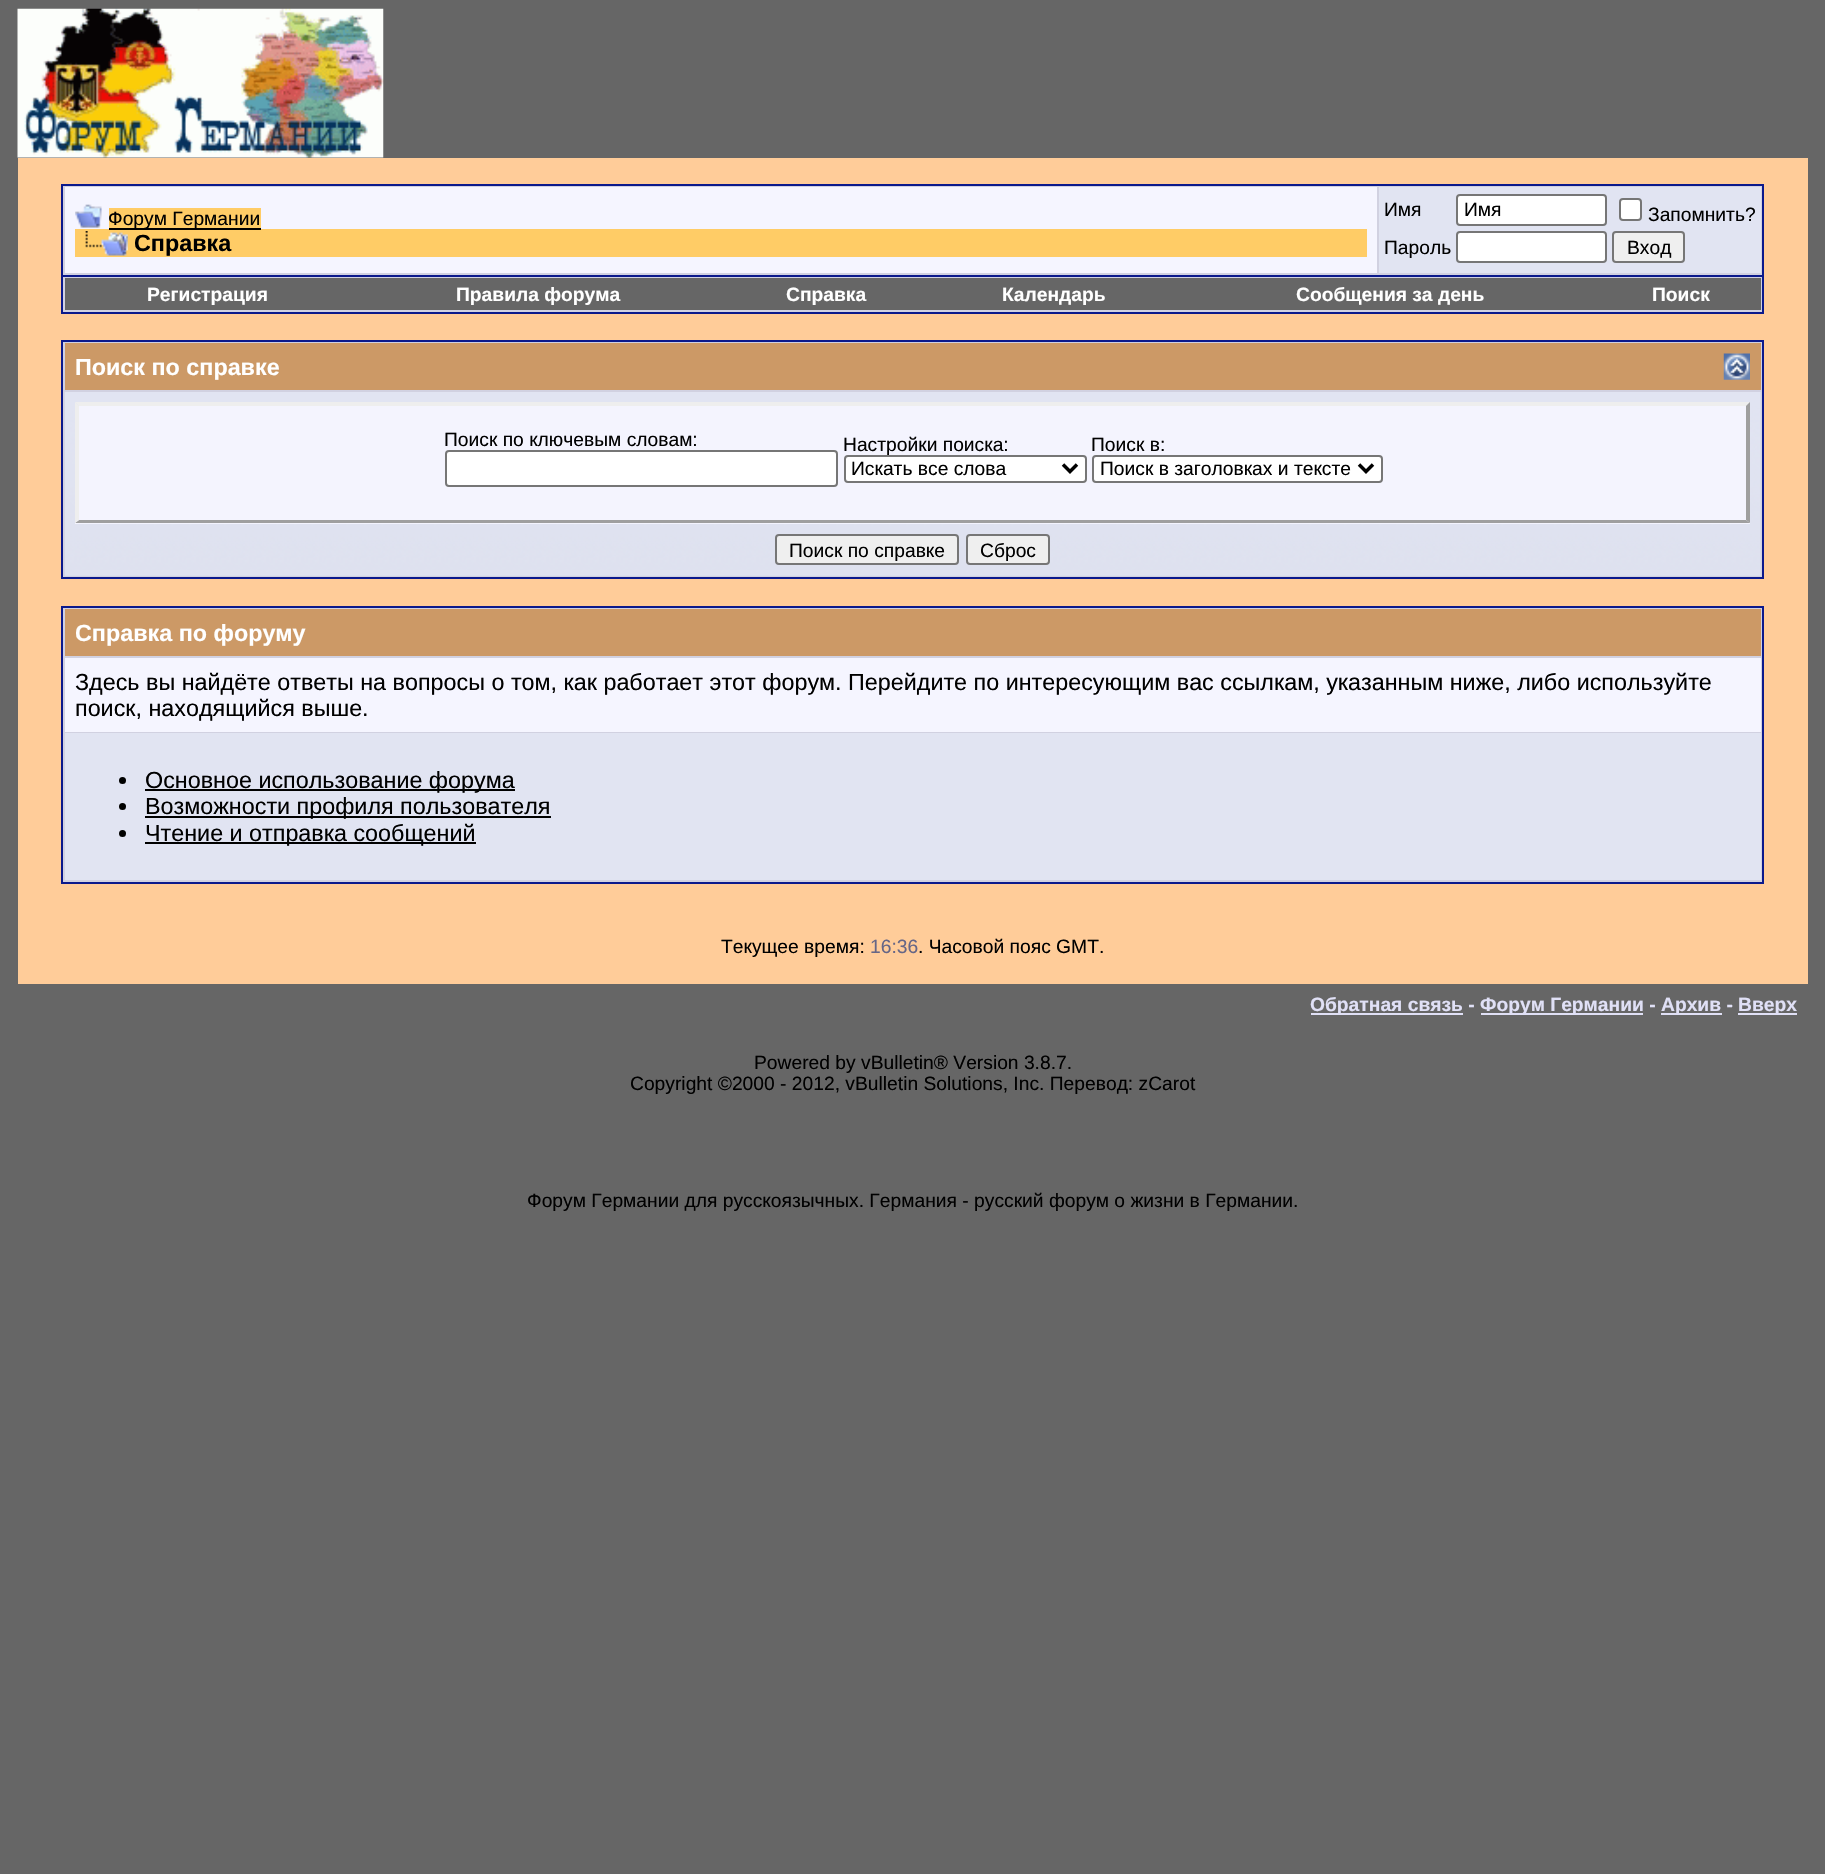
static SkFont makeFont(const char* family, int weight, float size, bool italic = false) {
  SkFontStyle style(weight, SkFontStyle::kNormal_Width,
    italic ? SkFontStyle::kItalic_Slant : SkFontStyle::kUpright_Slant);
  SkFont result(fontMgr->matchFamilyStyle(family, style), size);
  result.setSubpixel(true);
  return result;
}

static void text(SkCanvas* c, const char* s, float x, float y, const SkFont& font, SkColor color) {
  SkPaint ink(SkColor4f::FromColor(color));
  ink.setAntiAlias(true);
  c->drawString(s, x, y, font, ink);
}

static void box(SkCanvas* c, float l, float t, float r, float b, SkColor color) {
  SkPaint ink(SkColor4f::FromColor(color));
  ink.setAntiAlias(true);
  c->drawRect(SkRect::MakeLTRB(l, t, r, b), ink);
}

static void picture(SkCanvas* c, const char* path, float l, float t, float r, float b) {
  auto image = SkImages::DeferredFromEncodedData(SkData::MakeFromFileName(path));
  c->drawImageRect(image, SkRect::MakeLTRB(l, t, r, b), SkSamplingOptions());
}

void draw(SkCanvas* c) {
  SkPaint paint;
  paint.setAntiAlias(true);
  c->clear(0xff666666);
  picture(c, "img_01.png", 17, 8, 384, 158);
  box(c, 18, 158, 1808, 984, 0xffffcc99);
  paint.setColor(0xffd1d1e1);
  c->drawRect(SkRect::MakeLTRB(62, 185, 1763, 276), paint);
  paint.setStyle(SkPaint::kStroke_Style);
  paint.setStrokeWidth(2);
  paint.setColor(0xff0b198c);
  c->drawRect(SkRect::MakeLTRB(62, 185, 1763, 276), paint);
  box(c, 65, 187, 1377, 273, 0xfff5f5ff);
  picture(c, "img_02.png", 75, 204, 102, 228);
  box(c, 109, 208, 261, 228, 0xffffcc66);
  box(c, 75, 229, 1367, 257, 0xffffcc66);
  box(c, 109, 228, 261, 230, 0xff000000);
  SkFont face1 = makeFont("Liberation Sans", 400, 19.25f);
  text(c, "Форум Германии", 108, 225, face1, 0xff000000);
  picture(c, "img_03.png", 85, 231, 128, 256);
  SkFont face2 = makeFont("Liberation Sans", 700, 23.33f);
  text(c, "Справка", 134, 251, face2, 0xff000000);
  box(c, 1379, 187, 1761, 273, 0xffe1e4f2);
  text(c, "Имя", 1384, 216, face1, 0xff000000);
  paint.setStyle(SkPaint::kFill_Style);
  paint.setColor(0xffffffff);
  c->drawRoundRect(SkRect::MakeLTRB(1457, 195, 1606, 225), 3, 3, paint);
  paint.setStyle(SkPaint::kStroke_Style);
  paint.setColor(0xff767676);
  c->drawRoundRect(SkRect::MakeLTRB(1457, 195, 1606, 225), 3, 3, paint);
  text(c, "Имя", 1464, 216, face1, 0xff000000);
  paint.setStyle(SkPaint::kFill_Style);
  paint.setColor(0xffffffff);
  c->drawRoundRect(SkRect::MakeLTRB(1620, 199, 1641, 220), 3, 3, paint);
  paint.setStyle(SkPaint::kStroke_Style);
  paint.setColor(0xff767676);
  c->drawRoundRect(SkRect::MakeLTRB(1620, 199, 1641, 220), 3, 3, paint);
  text(c, "Запомнить?", 1648, 221, face1, 0xff000000);
  text(c, "Пароль", 1384, 254, face1, 0xff000000);
  paint.setStyle(SkPaint::kFill_Style);
  paint.setColor(0xffffffff);
  c->drawRoundRect(SkRect::MakeLTRB(1457, 232, 1606, 262), 3, 3, paint);
  paint.setStyle(SkPaint::kStroke_Style);
  paint.setColor(0xff767676);
  c->drawRoundRect(SkRect::MakeLTRB(1457, 232, 1606, 262), 3, 3, paint);
  paint.setStyle(SkPaint::kFill_Style);
  paint.setColor(0xffefefef);
  c->drawRoundRect(SkRect::MakeLTRB(1613, 232, 1684, 262), 3, 3, paint);
  paint.setStyle(SkPaint::kStroke_Style);
  paint.setColor(0xff767676);
  c->drawRoundRect(SkRect::MakeLTRB(1613, 232, 1684, 262), 3, 3, paint);
  text(c, "Вход", 1627, 254, face1, 0xff000000);
  box(c, 63, 277, 1762, 312, 0xffd1d1e1);
  box(c, 1762, 277, 1764, 313, 0xff0b198c);
  box(c, 61, 312, 1764, 314, 0xff0b198c);
  box(c, 61, 277, 63, 313, 0xff0b198c);
  box(c, 65, 278, 1761, 310, 0xff666666);
  SkFont face3 = makeFont("Liberation Sans", 700, 19.25f);
  text(c, "Регистрация", 147, 301, face3, 0xffffffff);
  text(c, "Правила форума", 456, 301, face3, 0xffffffff);
  text(c, "Справка", 786, 301, face3, 0xffffffff);
  text(c, "Календарь", 1002, 301, face3, 0xffffffff);
  text(c, "Сообщения за день", 1296, 301, face3, 0xffffffff);
  text(c, "Поиск", 1652, 301, face3, 0xffffffff);
  paint.setStyle(SkPaint::kFill_Style);
  paint.setColor(0xffd1d1e1);
  c->drawRect(SkRect::MakeLTRB(62, 341, 1763, 578), paint);
  paint.setStyle(SkPaint::kStroke_Style);
  paint.setColor(0xff0b198c);
  c->drawRect(SkRect::MakeLTRB(62, 341, 1763, 578), paint);
  box(c, 65, 343, 1761, 390, 0xffcc9966);
  text(c, "Поиск по справке", 75, 375, face2, 0xffffffff);
  picture(c, "img_04.png", 1723, 353, 1750, 380);
  box(c, 65, 392, 1761, 576, 0xffd1d4e0);
  picture(c, "img_05.png", 64, 392, 1761, 576);
  box(c, 75, 406, 1750, 524, 0xfff4f4fe);
  paint.setStyle(SkPaint::kFill_Style);
  paint.setColor(0xffeeeeee);
  c->drawPath(SkPathBuilder().moveTo(75, 402).lineTo(1750, 402).lineTo(1746, 406).lineTo(79, 406).close().detach(), paint);
  paint.setColor(0xff9f9f9f);
  c->drawPath(SkPathBuilder().moveTo(1750, 402).lineTo(1750, 523).lineTo(1746, 520).lineTo(1746, 406).close().detach(), paint);
  c->drawPath(SkPathBuilder().moveTo(1750, 523).lineTo(75, 523).lineTo(79, 520).lineTo(1746, 520).close().detach(), paint);
  paint.setColor(0xffeeeeee);
  c->drawPath(SkPathBuilder().moveTo(75, 523).lineTo(75, 402).lineTo(79, 406).lineTo(79, 520).close().detach(), paint);
  text(c, "Поиск по ключевым словам:", 444, 446, face1, 0xff000000);
  paint.setColor(0xffffffff);
  c->drawRoundRect(SkRect::MakeLTRB(446, 451, 837, 486), 3, 3, paint);
  paint.setStyle(SkPaint::kStroke_Style);
  paint.setColor(0xff767676);
  c->drawRoundRect(SkRect::MakeLTRB(446, 451, 837, 486), 3, 3, paint);
  text(c, "Настройки поиска:", 843, 451, face1, 0xff000000);
  paint.setStyle(SkPaint::kFill_Style);
  paint.setColor(0xffffffff);
  c->drawRoundRect(SkRect::MakeLTRB(845, 456, 1086, 482), 3, 3, paint);
  paint.setStyle(SkPaint::kStroke_Style);
  paint.setColor(0xff767676);
  c->drawRoundRect(SkRect::MakeLTRB(845, 456, 1086, 482), 3, 3, paint);
  paint.setStrokeWidth(3.5f);
  paint.setColor(0xff000000);
  c->drawPath(SkPathBuilder().moveTo(1063, 464.5f).lineTo(1070, 471.5f).lineTo(1077, 464.5f).detach(), paint);
  text(c, "Искать все слова", 851, 475, face1, 0xff000000);
  text(c, "Поиск в:", 1091, 451, face1, 0xff000000);
  paint.setStyle(SkPaint::kFill_Style);
  paint.setColor(0xffffffff);
  c->drawRoundRect(SkRect::MakeLTRB(1093, 456, 1382, 482), 3, 3, paint);
  paint.setStyle(SkPaint::kStroke_Style);
  paint.setStrokeWidth(2);
  paint.setColor(0xff767676);
  c->drawRoundRect(SkRect::MakeLTRB(1093, 456, 1382, 482), 3, 3, paint);
  paint.setStrokeWidth(3.5f);
  paint.setColor(0xff000000);
  c->drawPath(SkPathBuilder().moveTo(1359, 464.5f).lineTo(1366, 471.5f).lineTo(1373, 464.5f).detach(), paint);
  text(c, "Поиск в заголовках и тексте", 1100, 475, face1, 0xff000000);
  paint.setStyle(SkPaint::kFill_Style);
  paint.setColor(0xffefefef);
  c->drawRoundRect(SkRect::MakeLTRB(776, 535, 958, 564), 3, 3, paint);
  paint.setStyle(SkPaint::kStroke_Style);
  paint.setStrokeWidth(2);
  paint.setColor(0xff767676);
  c->drawRoundRect(SkRect::MakeLTRB(776, 535, 958, 564), 3, 3, paint);
  text(c, "Поиск по справке", 789, 557, face1, 0xff000000);
  paint.setStyle(SkPaint::kFill_Style);
  paint.setColor(0xffefefef);
  c->drawRoundRect(SkRect::MakeLTRB(967, 535, 1049, 564), 3, 3, paint);
  paint.setStyle(SkPaint::kStroke_Style);
  paint.setColor(0xff767676);
  c->drawRoundRect(SkRect::MakeLTRB(967, 535, 1049, 564), 3, 3, paint);
  text(c, "Сброс", 980, 557, face1, 0xff000000);
  paint.setStyle(SkPaint::kFill_Style);
  paint.setColor(0xffd1d1e1);
  c->drawRect(SkRect::MakeLTRB(62, 607, 1763, 883), paint);
  paint.setStyle(SkPaint::kStroke_Style);
  paint.setColor(0xff0b198c);
  c->drawRect(SkRect::MakeLTRB(62, 607, 1763, 883), paint);
  box(c, 65, 609, 1761, 656, 0xffcc9966);
  text(c, "Справка по форуму", 75, 641, face2, 0xffffffff);
  box(c, 65, 658, 1761, 732, 0xfff5f5ff);
  SkFont face4 = makeFont("Liberation Sans", 400, 23.33f);
  text(c, "Здесь вы найдёте ответы на вопросы о том, как работает этот форум. Перейдите по интересующим вас ссылкам, указанным ниже, либо используйте", 75, 690, face4, 0xff000000);
  text(c, "поиск, находящийся выше.", 75, 716, face4, 0xff000000);
  box(c, 65, 733, 1761, 880, 0xffe1e4f2);
  paint.setStyle(SkPaint::kFill_Style);
  paint.setColor(0xff000000);
  c->drawCircle(122.5f, 780.5f, 3.5f, paint);
  box(c, 145, 789, 515, 791, 0xff000000);
  text(c, "Основное использование форума", 145, 788, face4, 0xff000000);
  c->drawCircle(122.5f, 806.5f, 3.5f, paint);
  box(c, 145, 816, 551, 818, 0xff000000);
  text(c, "Возможности профиля пользователя", 145, 814, face4, 0xff000000);
  c->drawCircle(122.5f, 833.5f, 3.5f, paint);
  box(c, 145, 842, 476, 844, 0xff000000);
  text(c, "Чтение и отправка сообщений", 145, 841, face4, 0xff000000);
  text(c, "Текущее время:", 721, 953, face1, 0xff000000);
  text(c, "16:36", 870, 953, face1, 0xff666686);
  text(c, ". Часовой пояс GMT.", 918, 953, face1, 0xff000000);
  box(c, 1311, 1013, 1463, 1015, 0xffe0e0f6);
  text(c, "Обратная связь -", 1310, 1011, face3, 0xffe0e0f6);
  box(c, 1481, 1013, 1643, 1015, 0xffe0e0f6);
  text(c, "Форум Германии -", 1480, 1011, face3, 0xffe0e0f6);
  box(c, 1661, 1013, 1722, 1015, 0xffe0e0f6);
  text(c, "Архив -", 1661, 1011, face3, 0xffe0e0f6);
  box(c, 1738, 1013, 1797, 1015, 0xffe0e0f6);
  text(c, "Вверх", 1738, 1011, face3, 0xffe0e0f6);
  text(c, "Powered by vBulletin® Version 3.8.7.", 754, 1069, face1, 0xff000000);
  text(c, "Copyright ©2000 - 2012, vBulletin Solutions, Inc. Перевод: zCarot", 630, 1090, face1, 0xff000000);
  text(c, "Форум Германии для русскоязычных. Германия - русский форум о жизни в Германии.", 527, 1207, face1, 0xff000000);
}
